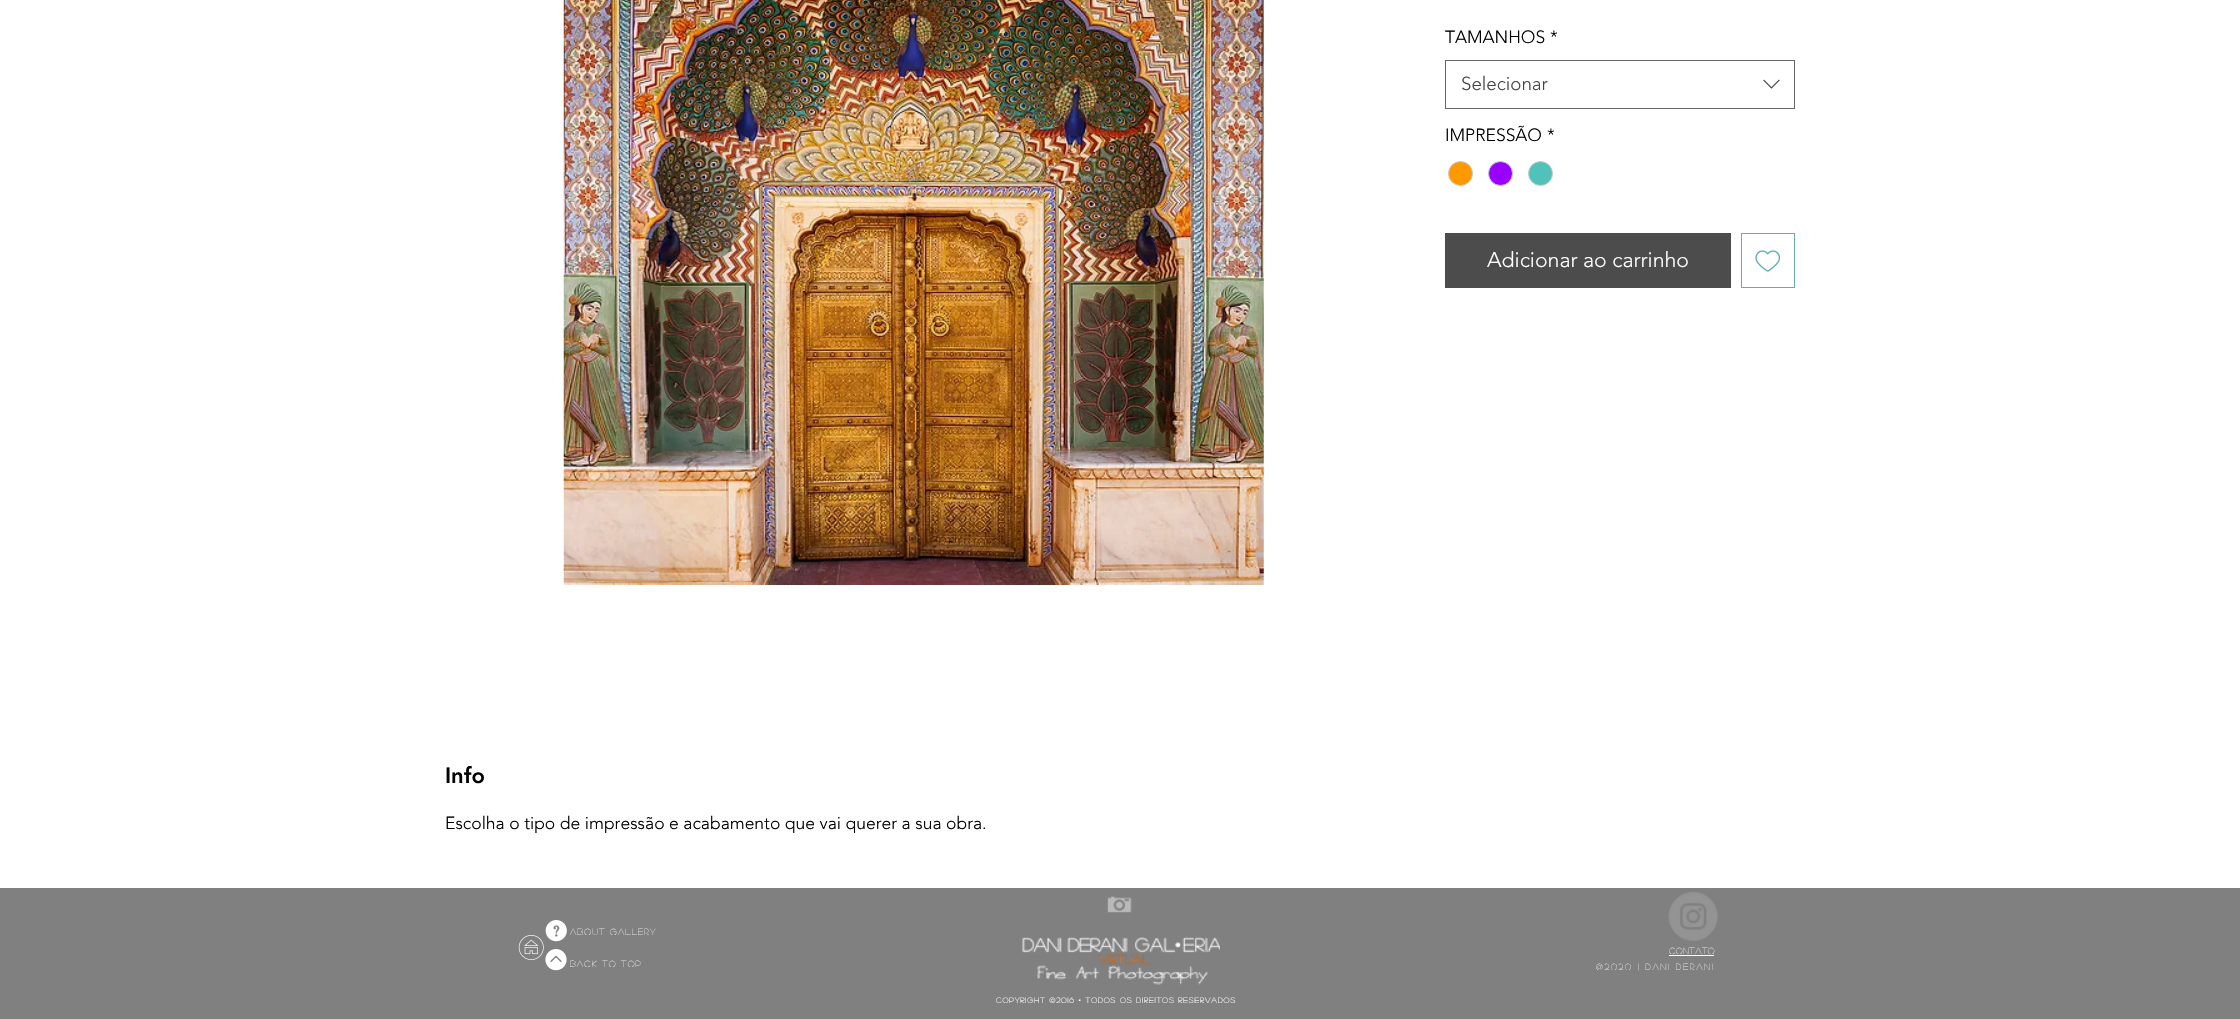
static SkFont makeFont(const char* family, int weight, float size, bool italic = false) {
  SkFontStyle style(weight, SkFontStyle::kNormal_Width,
    italic ? SkFontStyle::kItalic_Slant : SkFontStyle::kUpright_Slant);
  SkFont result(fontMgr->matchFamilyStyle(family, style), size);
  result.setSubpixel(true);
  return result;
}

static void text(SkCanvas* c, const char* s, float x, float y, const SkFont& font, SkColor color) {
  SkPaint ink(SkColor4f::FromColor(color));
  ink.setAntiAlias(true);
  c->drawString(s, x, y, font, ink);
}

static void spacedText(SkCanvas* c, const char* s, float x, float y, const SkFont& font, const SkPaint& ink, float letter, float word) {
  std::vector<SkGlyphID> glyphs(font.countText(s, strlen(s), SkTextEncoding::kUTF8));
  std::vector<float> xs(glyphs.size());
  font.textToGlyphs(s, strlen(s), SkTextEncoding::kUTF8, glyphs);
  font.getXPos(glyphs, xs, x);
  float extra = 0;
  for (size_t i = 0; i < glyphs.size(); i++) {
    xs[i] += extra;
    extra += letter + word * (glyphs[i] == font.unicharToGlyph(' '));
  }
  c->drawTextBlob(SkTextBlob::MakeFromPosHGlyphs(glyphs, xs, y, font), 0, 0, ink);
}

static void box(SkCanvas* c, float l, float t, float r, float b, SkColor color) {
  SkPaint ink(SkColor4f::FromColor(color));
  ink.setAntiAlias(true);
  c->drawRect(SkRect::MakeLTRB(l, t, r, b), ink);
}

static void picture(SkCanvas* c, const char* path, float l, float t, float r, float b) {
  auto image = SkImages::DeferredFromEncodedData(SkData::MakeFromFileName(path));
  c->drawImageRect(image, SkRect::MakeLTRB(l, t, r, b), SkSamplingOptions());
}

void draw(SkCanvas* c) {
  SkPaint paint;
  paint.setAntiAlias(true);
  c->clear(0xffffffff);
  picture(c, "img_01.png", 563, 0, 1264, 585);
  SkFont face1 = makeFont("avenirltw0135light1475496", 300, 17.5f);
  text(c, "TAMANHOS", 1445, 43, face1, 0xff000000);
  text(c, "*", 1550, 43, face1, 0xff000000);
  paint.setStyle(SkPaint::kStroke_Style);
  paint.setStrokeWidth(1);
  paint.setColor(0xff666666);
  c->drawRect(SkRect::MakeLTRB(1445.5f, 60.5f, 1794.5f, 108.5f), paint);
  SkFont face2 = makeFont("avenirltw0135light1475496", 300, 18.75f);
  text(c, "Selecionar", 1461, 90, face2, 0xff444444);
  picture(c, "img_02.png", 1763, 79, 1780, 89);
  text(c, "IMPRESSÃO", 1445, 141, face1, 0xff000000);
  text(c, "*", 1547, 141, face1, 0xff000000);
  paint.setStyle(SkPaint::kFill_Style);
  paint.setColor(0xffff9900);
  c->drawCircle(1460.5f, 173.5f, 12, paint);
  paint.setStyle(SkPaint::kStroke_Style);
  paint.setColor(0xffc9c9c9);
  c->drawCircle(1460.5f, 173.5f, 12, paint);
  paint.setStyle(SkPaint::kFill_Style);
  paint.setColor(0xff9900ff);
  c->drawCircle(1500.5f, 173.5f, 12, paint);
  paint.setStyle(SkPaint::kStroke_Style);
  paint.setColor(0xffc9c9c9);
  c->drawCircle(1500.5f, 173.5f, 12, paint);
  paint.setStyle(SkPaint::kFill_Style);
  paint.setColor(0xff51c2ba);
  c->drawCircle(1540.5f, 173.5f, 12, paint);
  paint.setStyle(SkPaint::kStroke_Style);
  paint.setColor(0xffc9c9c9);
  c->drawCircle(1540.5f, 173.5f, 12, paint);
  box(c, 1445, 233, 1731, 288, 0xff4c4c4c);
  SkFont face3 = makeFont("avenirltw0135light1475496", 300, 21.25f);
  text(c, "Adicionar ao carrinho", 1487, 267, face3, 0xffffffff);
  paint.setColor(0xff62aeb3);
  c->drawRect(SkRect::MakeLTRB(1741.5f, 233.5f, 1794.5f, 287.5f), paint);
  picture(c, "img_03.png", 1755, 250, 1781, 272);
  SkFont face4 = makeFont("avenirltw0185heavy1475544", 900, 22);
  text(c, "Info", 445, 783, face4, 0xff000000);
  text(c, "Escolha o tipo de impressão e acabamento que vai querer a sua obra.", 445, 829, face1, 0xff000000);
  box(c, 0, 888, 2240, 1019, 0xff808080);
  picture(c, "img_04.png", 1107, 895, 1132, 913);
  picture(c, "img_05.png", 1668, 892, 1718, 941);
  picture(c, "img_06.png", 545, 920, 567, 942);
  SkFont face5 = makeFont("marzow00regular", 400, 8.75f);
  paint.setStyle(SkPaint::kFill_Style);
  paint.setColor(0xffffffff);
  spacedText(c, "ABOUT GALLERY", 570, 935, face5, paint, 1.25f, 0);
  picture(c, "img_07.png", 518, 935, 544, 960);
  picture(c, "img_08.png", 545, 949, 567, 971);
  spacedText(c, "Back to Top", 570, 967, face5, paint, 1.25f, 0);
  picture(c, "img_09.png", 1022, 937, 1220, 985);
  spacedText(c, "contato", 1669, 954, face5, paint, 0.5f, 0);
  box(c, 1669, 955, 1714, 956, 0xffffffff);
  spacedText(c, "@2020 | Dani Derani", 1596, 970, face5, paint, 1.75f, 0);
  SkFont face6 = makeFont("marzow00regular", 700, 7.5f);
  spacedText(c, "Copyright ©2016 • Todos os Direitos Reservados", 996, 1003, face6, paint, 1.1f, 0);
}
